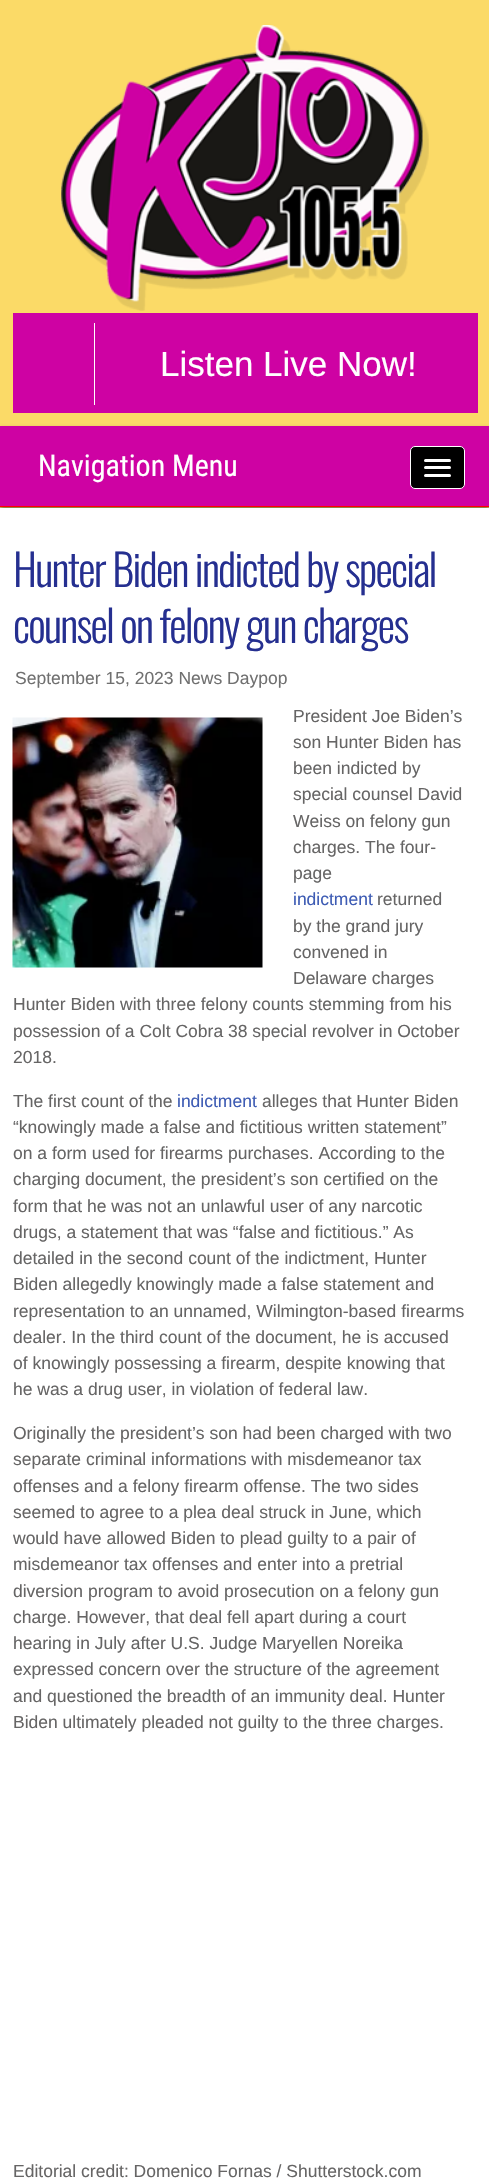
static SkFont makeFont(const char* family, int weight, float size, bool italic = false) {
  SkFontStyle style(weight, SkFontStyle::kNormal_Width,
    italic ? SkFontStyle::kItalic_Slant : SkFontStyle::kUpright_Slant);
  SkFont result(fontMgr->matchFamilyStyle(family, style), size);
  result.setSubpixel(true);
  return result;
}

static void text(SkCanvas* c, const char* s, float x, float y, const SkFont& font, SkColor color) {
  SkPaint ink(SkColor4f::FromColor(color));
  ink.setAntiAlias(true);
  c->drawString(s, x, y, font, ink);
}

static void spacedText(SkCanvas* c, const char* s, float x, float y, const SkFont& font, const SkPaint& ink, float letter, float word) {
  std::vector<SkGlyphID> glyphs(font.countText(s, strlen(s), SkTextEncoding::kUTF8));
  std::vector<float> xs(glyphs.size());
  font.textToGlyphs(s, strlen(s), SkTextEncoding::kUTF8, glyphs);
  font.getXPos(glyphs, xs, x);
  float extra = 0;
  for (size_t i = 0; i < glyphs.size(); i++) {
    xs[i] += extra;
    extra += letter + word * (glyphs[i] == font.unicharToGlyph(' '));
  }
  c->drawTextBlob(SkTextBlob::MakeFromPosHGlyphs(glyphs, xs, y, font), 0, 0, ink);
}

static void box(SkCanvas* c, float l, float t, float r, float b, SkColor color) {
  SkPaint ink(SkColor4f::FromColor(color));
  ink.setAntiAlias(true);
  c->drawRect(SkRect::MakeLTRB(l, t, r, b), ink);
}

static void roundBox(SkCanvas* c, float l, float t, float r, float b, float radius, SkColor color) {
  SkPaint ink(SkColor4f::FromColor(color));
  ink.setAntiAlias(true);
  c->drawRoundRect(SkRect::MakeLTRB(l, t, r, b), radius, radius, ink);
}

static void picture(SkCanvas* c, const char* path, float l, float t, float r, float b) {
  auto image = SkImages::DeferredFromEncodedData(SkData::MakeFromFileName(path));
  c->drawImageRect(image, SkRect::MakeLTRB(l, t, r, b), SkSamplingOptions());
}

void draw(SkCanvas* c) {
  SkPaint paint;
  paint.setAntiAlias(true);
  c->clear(0xfffbda67);
  picture(c, "img_01.png", 61, 25, 429, 311);
  box(c, 13, 313, 478, 413, 0xffce02a3);
  box(c, 94, 323, 95, 405, 0xffffffff);
  SkFont face1 = makeFont("Liberation Sans", 400, 35);
  text(c, "Listen Live Now!", 160, 376, face1, 0xffffffff);
  paint.setColor(0x87323232);
  paint.setMaskFilter(SkMaskFilter::MakeBlur(kNormal_SkBlurStyle, 2.5f));
  c->drawRect(SkRect::MakeLTRB(0, 429, 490, 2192), paint);
  paint.setMaskFilter(nullptr);
  box(c, 0, 426, 489, 506, 0xffce02a3);
  SkFont face2 = makeFont("Roboto Condensed", 400, 30);
  text(c, "Navigation Menu", 38, 476, face2, 0xffffffff);
  paint.setColor(0xff000000);
  c->drawRoundRect(SkRect::MakeLTRB(410.5f, 446.5f, 464.5f, 488.5f), 4.5f, 4.5f, paint);
  paint.setStyle(SkPaint::kStroke_Style);
  paint.setStrokeWidth(1);
  paint.setColor(0xffffffff);
  c->drawRoundRect(SkRect::MakeLTRB(410.5f, 446.5f, 464.5f, 488.5f), 4.5f, 4.5f, paint);
  roundBox(c, 424, 459, 451, 462, 1.5f, 0xffffffff);
  roundBox(c, 424, 466, 451, 469, 1.5f, 0xffffffff);
  roundBox(c, 424, 474, 451, 477, 1.5f, 0xffffffff);
  box(c, 0, 506, 489, 507, 0xffff0000);
  box(c, 0, 508, 489, 2184, 0xffffffff);
  SkFont face3 = makeFont("Oswald", 300, 43.75f);
  paint.setStyle(SkPaint::kFill_Style);
  paint.setColor(0xff252f90);
  spacedText(c, "Hunter Biden indicted by special", 13, 587, face3, paint, -1.75f, 0);
  spacedText(c, "counsel on felony gun charges", 13, 643, face3, paint, -1.75f, 0);
  SkFont face4 = makeFont("Liberation Sans", 400, 17.5f);
  text(c, "September 15, 2023 News Daypop", 15, 684, face4, 0xff707070);
  text(c, "President Joe Biden’s", 293, 722, face4, 0xff666565);
  text(c, "son Hunter Biden has", 293, 748, face4, 0xff666565);
  text(c, "been indicted by", 293, 774, face4, 0xff666565);
  text(c, "special counsel David", 293, 800, face4, 0xff666565);
  text(c, "Weiss on felony gun", 293, 827, face4, 0xff666565);
  text(c, "charges. The four-", 293, 853, face4, 0xff666565);
  text(c, "page", 293, 879, face4, 0xff666565);
  text(c, "indictment", 293, 905, face4, 0xff3e5cb4);
  text(c, "returned", 377, 905, face4, 0xff666565);
  text(c, "by the grand jury", 293, 932, face4, 0xff666565);
  text(c, "convened in", 293, 958, face4, 0xff666565);
  text(c, "Delaware charges", 293, 984, face4, 0xff666565);
  text(c, "Hunter Biden with three felony counts stemming from his", 13, 1010, face4, 0xff666565);
  text(c, "possession of a Colt Cobra 38 special revolver in October", 13, 1037, face4, 0xff666565);
  text(c, "2018.", 13, 1063, face4, 0xff666565);
  picture(c, "img_02.png", 12, 717, 263, 968);
  text(c, "The first count of the", 13, 1107, face4, 0xff666565);
  text(c, "indictment", 177, 1107, face4, 0xff3e5cb4);
  text(c, "alleges that Hunter Biden", 262, 1107, face4, 0xff666565);
  text(c, "“knowingly made a false and fictitious written statement”", 13, 1133, face4, 0xff666565);
  text(c, "on a form used for firearms purchases. According to the", 13, 1159, face4, 0xff666565);
  text(c, "charging document, the president’s son certified on the", 13, 1185, face4, 0xff666565);
  text(c, "form that he was not an unlawful user of any narcotic", 13, 1212, face4, 0xff666565);
  text(c, "drugs, a statement that was “false and fictitious.” As", 13, 1238, face4, 0xff666565);
  text(c, "detailed in the second count of the indictment, Hunter", 13, 1264, face4, 0xff666565);
  text(c, "Biden allegedly knowingly made a false statement and", 13, 1290, face4, 0xff666565);
  text(c, "representation to an unnamed, Wilmington-based firearms", 13, 1317, face4, 0xff666565);
  text(c, "dealer. In the third count of the document, he is accused", 13, 1343, face4, 0xff666565);
  text(c, "of knowingly possessing a firearm, despite knowing that", 13, 1369, face4, 0xff666565);
  text(c, "he was a drug user, in violation of federal law.", 13, 1395, face4, 0xff666565);
  text(c, "Originally the president’s son had been charged with two", 13, 1439, face4, 0xff666565);
  text(c, "separate criminal informations with misdemeanor tax", 13, 1465, face4, 0xff666565);
  text(c, "offenses and a felony firearm offense. The two sides", 13, 1492, face4, 0xff666565);
  text(c, "seemed to agree to a plea deal struck in June, which", 13, 1518, face4, 0xff666565);
  text(c, "would have allowed Biden to plead guilty to a pair of", 13, 1544, face4, 0xff666565);
  text(c, "misdemeanor tax offenses and enter into a pretrial", 13, 1570, face4, 0xff666565);
  text(c, "diversion program to avoid prosecution on a felony gun", 13, 1597, face4, 0xff666565);
  text(c, "charge. However, that deal fell apart during a court", 13, 1623, face4, 0xff666565);
  text(c, "hearing in July after U.S. Judge Maryellen Noreika", 13, 1649, face4, 0xff666565);
  text(c, "expressed concern over the structure of the agreement", 13, 1675, face4, 0xff666565);
  text(c, "and questioned the breadth of an immunity deal. Hunter", 13, 1702, face4, 0xff666565);
  text(c, "Biden ultimately pleaded not guilty to the three charges.", 13, 1728, face4, 0xff666565);
  text(c, "Editorial credit: Domenico Fornas / Shutterstock.com", 13, 2177, face4, 0xff666565);
}
